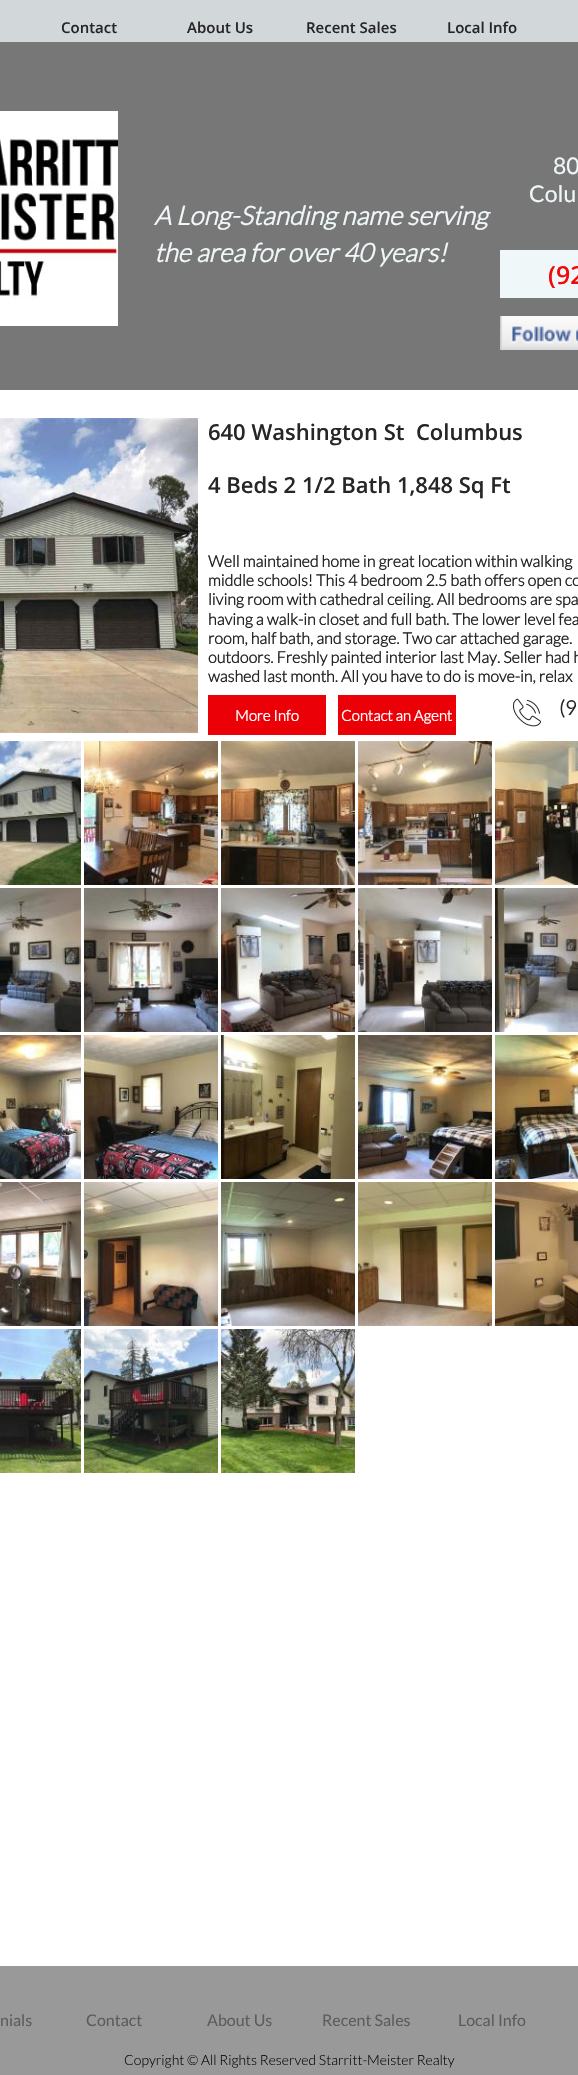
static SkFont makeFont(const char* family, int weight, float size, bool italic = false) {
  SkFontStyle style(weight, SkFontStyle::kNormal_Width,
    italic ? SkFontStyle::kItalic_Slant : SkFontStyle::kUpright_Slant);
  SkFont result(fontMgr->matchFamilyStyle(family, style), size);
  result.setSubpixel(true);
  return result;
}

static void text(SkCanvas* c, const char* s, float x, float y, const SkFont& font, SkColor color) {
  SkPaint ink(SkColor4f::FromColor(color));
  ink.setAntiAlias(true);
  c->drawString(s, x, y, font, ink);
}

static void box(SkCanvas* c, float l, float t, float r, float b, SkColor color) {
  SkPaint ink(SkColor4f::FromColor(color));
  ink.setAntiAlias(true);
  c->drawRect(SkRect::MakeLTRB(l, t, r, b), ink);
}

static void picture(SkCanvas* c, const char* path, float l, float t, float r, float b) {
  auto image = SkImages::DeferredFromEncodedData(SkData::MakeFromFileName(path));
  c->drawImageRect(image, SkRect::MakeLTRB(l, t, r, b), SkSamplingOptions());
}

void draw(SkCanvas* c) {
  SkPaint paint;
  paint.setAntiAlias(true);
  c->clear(0xffffffff);
  box(c, 0, 0, 578, 42, 0xffd2d8da);
  SkFont face1 = makeFont("Open Sans", 600, 15);
  text(c, "Contact", 61, 33, face1, 0xff262626);
  text(c, "About Us", 187, 33, face1, 0xff262626);
  text(c, "Recent Sales", 306, 33, face1, 0xff262626);
  text(c, "Local Info", 447, 33, face1, 0xff262626);
  box(c, 0, 42, 578, 390, 0xff777777);
  box(c, 0, 111, 118, 326, 0xffffffff);
  picture(c, "img_01.png", 0, 135, 118, 299);
  SkFont face2 = makeFont("Lato", 400, 23);
  text(c, "80", 553, 174, face2, 0xffeff7f9);
  text(c, "Colu", 529, 202, face2, 0xffeff7f9);
  SkFont face3 = makeFont("Lato", 700, 26, true);
  text(c, "A Long-Standing name serving", 154, 225, face3, 0xffeff7f9);
  text(c, "the area for over 40 years!", 154, 262, face3, 0xffeff7f9);
  box(c, 500, 250, 578, 298, 0xffeff7f9);
  SkFont face4 = makeFont("Open Sans", 600, 25);
  text(c, "(92", 548, 284, face4, 0xfff20909);
  picture(c, "img_02.png", 500, 316, 578, 350);
  picture(c, "img_03.png", 0, 418, 198, 733);
  SkFont face5 = makeFont("Open Sans", 600, 22);
  text(c, "640 Washington St  Columbus", 208, 440, face5, 0xff262626);
  text(c, "4 Beds 2 1/2 Bath 1,848 Sq Ft", 208, 493, face5, 0xff262626);
  SkFont face6 = makeFont("Lato", 700, 16);
  text(c, "Well maintained home in great location within walking", 208, 567, face6, 0xff262626);
  text(c, "middle schools! This 4 bedroom 2.5 bath offers open co", 208, 586, face6, 0xff262626);
  text(c, "living room with cathedral ceiling. All bedrooms are spa", 208, 605, face6, 0xff262626);
  text(c, "having a walk-in closet and full bath. The lower level fea", 208, 625, face6, 0xff262626);
  text(c, "room, half bath, and storage. Two car attached garage.", 208, 644, face6, 0xff262626);
  text(c, "outdoors. Freshly painted interior last May. Seller had h", 208, 663, face6, 0xff262626);
  text(c, "washed last month. All you have to do is move-in, relax", 208, 682, face6, 0xff262626);
  box(c, 208, 695, 326, 735, 0xffeb0008);
  SkFont face7 = makeFont("Lato", 700, 15);
  text(c, "More Info", 235, 721, face7, 0xffffffff);
  box(c, 338, 695, 456, 735, 0xffeb0008);
  text(c, "Contact an Agent", 341, 721, face7, 0xffffffff);
  picture(c, "img_04.png", 513, 698, 541, 727);
  SkFont face8 = makeFont("Lato", 700, 20);
  text(c, "(9", 559, 715, face8, 0xff262626);
  picture(c, "img_05.png", 0, 741, 81, 885);
  picture(c, "img_06.png", 84, 741, 218, 885);
  picture(c, "img_07.png", 221, 741, 355, 885);
  picture(c, "img_08.png", 358, 741, 492, 885);
  picture(c, "img_09.png", 495, 741, 578, 885);
  picture(c, "img_10.png", 0, 888, 81, 1032);
  picture(c, "img_11.png", 84, 888, 218, 1032);
  picture(c, "img_12.png", 221, 888, 355, 1032);
  picture(c, "img_13.png", 358, 888, 492, 1032);
  picture(c, "img_14.png", 495, 888, 578, 1032);
  picture(c, "img_15.png", 0, 1035, 81, 1179);
  picture(c, "img_16.png", 84, 1035, 218, 1179);
  picture(c, "img_17.png", 221, 1035, 355, 1179);
  picture(c, "img_18.png", 358, 1035, 492, 1179);
  picture(c, "img_19.png", 495, 1035, 578, 1179);
  picture(c, "img_20.png", 0, 1182, 81, 1326);
  picture(c, "img_21.png", 84, 1182, 218, 1326);
  picture(c, "img_22.png", 221, 1182, 355, 1326);
  picture(c, "img_23.png", 358, 1182, 492, 1326);
  picture(c, "img_24.png", 495, 1182, 578, 1326);
  picture(c, "img_25.png", 0, 1329, 81, 1473);
  picture(c, "img_26.png", 84, 1329, 218, 1473);
  picture(c, "img_27.png", 221, 1329, 355, 1473);
  box(c, 0, 1966, 578, 2075, 0xff999999);
  SkFont face9 = makeFont("Lato", 400, 16);
  text(c, "nials", 0, 2026, face9, 0xff5c5c5c);
  text(c, "Contact", 86, 2026, face9, 0xff5c5c5c);
  text(c, "About Us", 207, 2026, face9, 0xff5c5c5c);
  text(c, "Recent Sales", 322, 2026, face9, 0xff5c5c5c);
  text(c, "Local Info", 458, 2026, face9, 0xff5c5c5c);
  SkFont face10 = makeFont("Lato", 300, 14);
  text(c, "Copyright © All Rights Reserved Starritt-Meister Realty", 124, 2065, face10, 0xff050505);
}
